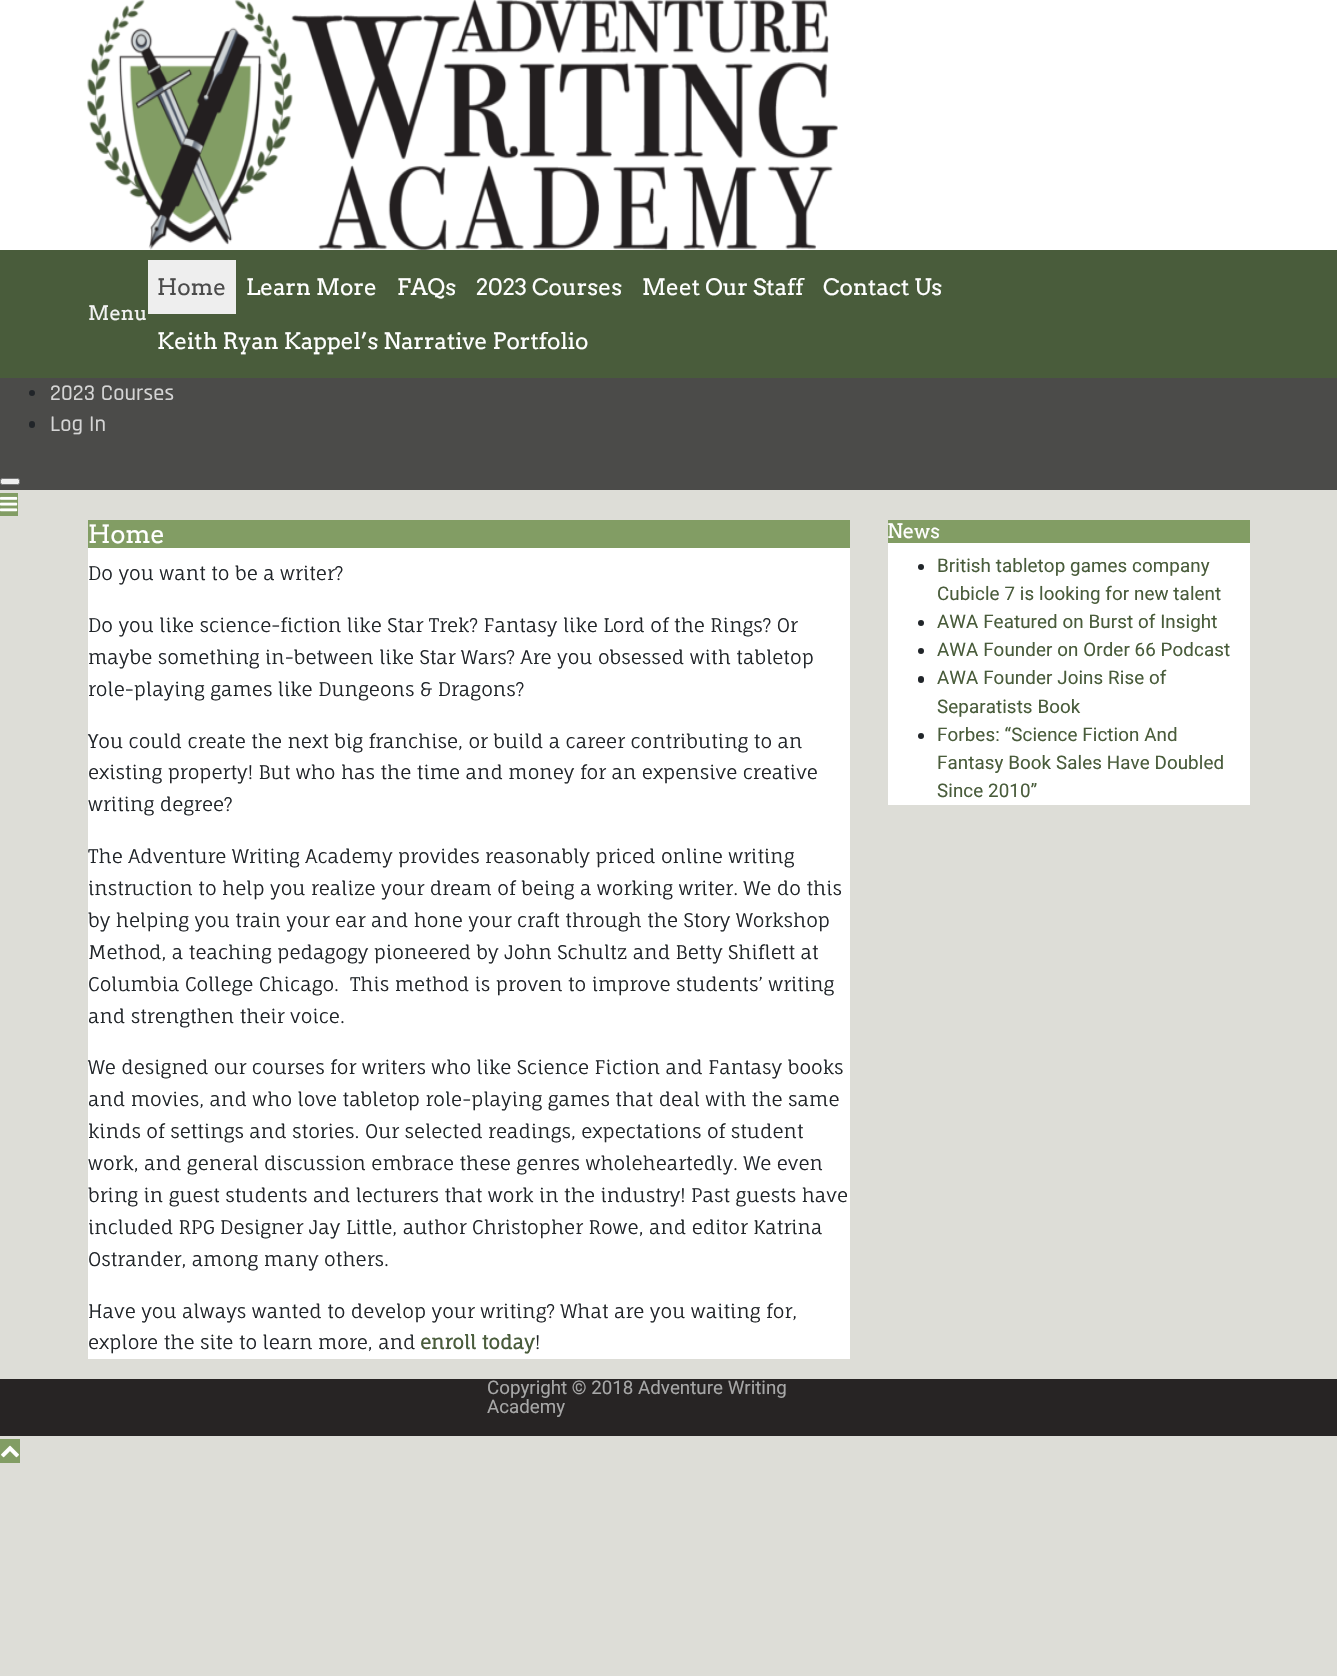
static SkFont makeFont(const char* family, int weight, float size, bool italic = false) {
  SkFontStyle style(weight, SkFontStyle::kNormal_Width,
    italic ? SkFontStyle::kItalic_Slant : SkFontStyle::kUpright_Slant);
  SkFont result(fontMgr->matchFamilyStyle(family, style), size);
  result.setSubpixel(true);
  return result;
}

static void text(SkCanvas* c, const char* s, float x, float y, const SkFont& font, SkColor color) {
  SkPaint ink(SkColor4f::FromColor(color));
  ink.setAntiAlias(true);
  c->drawString(s, x, y, font, ink);
}

static void spacedText(SkCanvas* c, const char* s, float x, float y, const SkFont& font, const SkPaint& ink, float letter, float word) {
  std::vector<SkGlyphID> glyphs(font.countText(s, strlen(s), SkTextEncoding::kUTF8));
  std::vector<float> xs(glyphs.size());
  font.textToGlyphs(s, strlen(s), SkTextEncoding::kUTF8, glyphs);
  font.getXPos(glyphs, xs, x);
  float extra = 0;
  for (size_t i = 0; i < glyphs.size(); i++) {
    xs[i] += extra;
    extra += letter + word * (glyphs[i] == font.unicharToGlyph(' '));
  }
  c->drawTextBlob(SkTextBlob::MakeFromPosHGlyphs(glyphs, xs, y, font), 0, 0, ink);
}

static void box(SkCanvas* c, float l, float t, float r, float b, SkColor color) {
  SkPaint ink(SkColor4f::FromColor(color));
  ink.setAntiAlias(true);
  c->drawRect(SkRect::MakeLTRB(l, t, r, b), ink);
}

static void roundBox(SkCanvas* c, float l, float t, float r, float b, float radius, SkColor color) {
  SkPaint ink(SkColor4f::FromColor(color));
  ink.setAntiAlias(true);
  c->drawRoundRect(SkRect::MakeLTRB(l, t, r, b), radius, radius, ink);
}

static void picture(SkCanvas* c, const char* path, float l, float t, float r, float b) {
  auto image = SkImages::DeferredFromEncodedData(SkData::MakeFromFileName(path));
  c->drawImageRect(image, SkRect::MakeLTRB(l, t, r, b), SkSamplingOptions());
}

void draw(SkCanvas* c) {
  SkPaint paint;
  paint.setAntiAlias(true);
  c->clear(0xffddddd7);
  box(c, 0, 0, 1337, 250, 0xffffffff);
  picture(c, "img_01.png", 87, 0, 838, 250);
  box(c, 0, 250, 1337, 378, 0xff495c3b);
  SkFont face1 = makeFont("Arvo", 400, 20);
  text(c, "Menu", 88, 320, face1, 0xfff3f3f3);
  box(c, 148, 260, 236, 314, 0xffeeeeee);
  SkFont face2 = makeFont("Arvo", 400, 22.5f);
  text(c, "Home", 157, 295, face2, 0xff4c4c4c);
  text(c, "Learn More", 246, 295, face2, 0xffffffff);
  text(c, "FAQs", 397, 295, face2, 0xffffffff);
  text(c, "2023 Courses", 476, 295, face2, 0xffffffff);
  text(c, "Meet Our Staff", 642, 295, face2, 0xffffffff);
  text(c, "Contact Us", 823, 295, face2, 0xffffffff);
  text(c, "Keith Ryan Kappel’s Narrative Portfolio", 157, 349, face2, 0xffffffff);
  box(c, 0, 378, 1337, 490, 0xff4b4b49);
  paint.setColor(0xff212529);
  c->drawCircle(32, 393, 3, paint);
  SkFont face3 = makeFont("Rajdhani", 500, 22.5f);
  paint.setColor(0xffd5d5d5);
  spacedText(c, "2023 Courses", 50, 400, face3, paint, 0.1f, 0);
  roundBox(c, 29, 421, 35, 428, 3, 0xff212529);
  spacedText(c, "Log In", 50, 431, face3, paint, 0.1f, 0);
  paint.setColor(0xffefefef);
  c->drawRoundRect(SkRect::MakeLTRB(0.5f, 478.5f, 19.5f, 484.5f), 2, 2, paint);
  paint.setStyle(SkPaint::kStroke_Style);
  paint.setStrokeWidth(1);
  paint.setColor(0xff767676);
  c->drawRoundRect(SkRect::MakeLTRB(0.5f, 478.5f, 19.5f, 484.5f), 2, 2, paint);
  box(c, 0, 493, 18, 516, 0xff829d64);
  picture(c, "img_02.png", 0, 496, 18, 512);
  box(c, 88, 548, 850, 1359, 0xffffffff);
  box(c, 88, 520, 850, 548, 0xff829d64);
  SkFont face4 = makeFont("Arvo", 400, 25);
  text(c, "Home", 88, 543, face4, 0xffffffff);
  SkFont face5 = makeFont("Fauna One", 400, 18.75f);
  text(c, "Do you want to be a writer?", 88, 580, face5, 0xff212529);
  text(c, "Do you like science-fiction like Star Trek? Fantasy like Lord of the Rings? Or", 88, 632, face5, 0xff212529);
  text(c, "maybe something in-between like Star Wars? Are you obsessed with tabletop", 88, 664, face5, 0xff212529);
  text(c, "role-playing games like Dungeons & Dragons?", 88, 696, face5, 0xff212529);
  text(c, "You could create the next big franchise, or build a career contributing to an", 88, 748, face5, 0xff212529);
  text(c, "existing property! But who has the time and money for an expensive creative", 88, 779, face5, 0xff212529);
  text(c, "writing degree?", 88, 811, face5, 0xff212529);
  text(c, "The Adventure Writing Academy provides reasonably priced online writing", 88, 863, face5, 0xff212529);
  text(c, "instruction to help you realize your dream of being a working writer. We do this", 88, 895, face5, 0xff212529);
  text(c, "by helping you train your ear and hone your craft through the Story Workshop", 88, 927, face5, 0xff212529);
  text(c, "Method, a teaching pedagogy pioneered by John Schultz and Betty Shiflett at", 88, 959, face5, 0xff212529);
  text(c, "Columbia College Chicago.  This method is proven to improve students’ writing", 88, 991, face5, 0xff212529);
  text(c, "and strengthen their voice.", 88, 1023, face5, 0xff212529);
  text(c, "We designed our courses for writers who like Science Fiction and Fantasy books", 88, 1074, face5, 0xff212529);
  text(c, "and movies, and who love tabletop role-playing games that deal with the same", 88, 1106, face5, 0xff212529);
  text(c, "kinds of settings and stories. Our selected readings, expectations of student", 88, 1138, face5, 0xff212529);
  text(c, "work, and general discussion embrace these genres wholeheartedly. We even", 88, 1170, face5, 0xff212529);
  text(c, "bring in guest students and lecturers that work in the industry! Past guests have", 88, 1202, face5, 0xff212529);
  text(c, "included RPG Designer Jay Little, author Christopher Rowe, and editor Katrina", 88, 1234, face5, 0xff212529);
  text(c, "Ostrander, among many others.", 88, 1266, face5, 0xff212529);
  text(c, "Have you always wanted to develop your writing? What are you waiting for,", 88, 1318, face5, 0xff212529);
  text(c, "explore the site to learn more, and", 88, 1349, face5, 0xff212529);
  SkFont face6 = makeFont("Fauna One", 700, 18.75f);
  text(c, "enroll today", 420, 1349, face6, 0xff495c3b);
  text(c, "!", 535, 1349, face5, 0xff212529);
  box(c, 888, 543, 1250, 805, 0xffffffff);
  box(c, 888, 520, 1250, 543, 0xff829d64);
  text(c, "News", 887, 538, face1, 0xffffffff);
  paint.setStyle(SkPaint::kFill_Style);
  paint.setColor(0xff212529);
  c->drawCircle(921, 567, 3, paint);
  SkFont face7 = makeFont("Roboto", 400, 18.75f);
  paint.setColor(0xff495c3b);
  spacedText(c, "British tabletop games company", 937, 572, face7, paint, 0.1f, 0);
  spacedText(c, "Cubicle 7 is looking for new talent", 937, 600, face7, paint, 0.1f, 0);
  paint.setColor(0xff212529);
  c->drawCircle(921, 623, 3, paint);
  paint.setColor(0xff495c3b);
  spacedText(c, "AWA Featured on Burst of Insight", 937, 628, face7, paint, 0.1f, 0);
  paint.setColor(0xff212529);
  c->drawCircle(921, 651, 3, paint);
  paint.setColor(0xff495c3b);
  spacedText(c, "AWA Founder on Order 66 Podcast", 937, 656, face7, paint, 0.1f, 0);
  roundBox(c, 918, 676, 924, 683, 3, 0xff212529);
  spacedText(c, "AWA Founder Joins Rise of", 937, 684, face7, paint, 0.1f, 0);
  spacedText(c, "Separatists Book", 937, 713, face7, paint, 0.1f, 0);
  paint.setColor(0xff212529);
  c->drawCircle(921, 736, 3, paint);
  paint.setColor(0xff495c3b);
  spacedText(c, "Forbes: “Science Fiction And", 937, 741, face7, paint, 0.1f, 0);
  spacedText(c, "Fantasy Book Sales Have Doubled", 937, 769, face7, paint, 0.1f, 0);
  spacedText(c, "Since 2010”", 937, 797, face7, paint, 0.1f, 0);
  box(c, 0, 1379, 1337, 1436, 0xff272424);
  text(c, "Copyright © 2018 Adventure Writing", 487, 1394, face7, 0xffa7a7a7);
  text(c, "Academy", 487, 1413, face7, 0xffa7a7a7);
  box(c, 0, 1439, 20, 1463, 0xff829d64);
  picture(c, "img_03.png", 1, 1445, 19, 1458);
}
